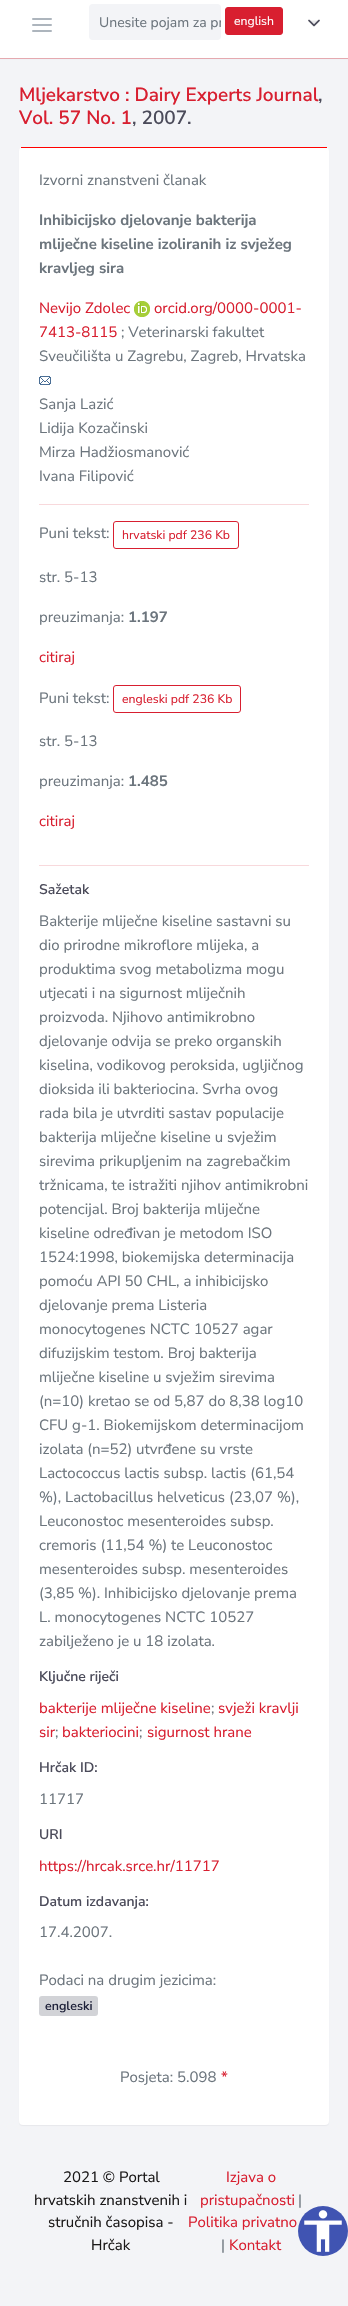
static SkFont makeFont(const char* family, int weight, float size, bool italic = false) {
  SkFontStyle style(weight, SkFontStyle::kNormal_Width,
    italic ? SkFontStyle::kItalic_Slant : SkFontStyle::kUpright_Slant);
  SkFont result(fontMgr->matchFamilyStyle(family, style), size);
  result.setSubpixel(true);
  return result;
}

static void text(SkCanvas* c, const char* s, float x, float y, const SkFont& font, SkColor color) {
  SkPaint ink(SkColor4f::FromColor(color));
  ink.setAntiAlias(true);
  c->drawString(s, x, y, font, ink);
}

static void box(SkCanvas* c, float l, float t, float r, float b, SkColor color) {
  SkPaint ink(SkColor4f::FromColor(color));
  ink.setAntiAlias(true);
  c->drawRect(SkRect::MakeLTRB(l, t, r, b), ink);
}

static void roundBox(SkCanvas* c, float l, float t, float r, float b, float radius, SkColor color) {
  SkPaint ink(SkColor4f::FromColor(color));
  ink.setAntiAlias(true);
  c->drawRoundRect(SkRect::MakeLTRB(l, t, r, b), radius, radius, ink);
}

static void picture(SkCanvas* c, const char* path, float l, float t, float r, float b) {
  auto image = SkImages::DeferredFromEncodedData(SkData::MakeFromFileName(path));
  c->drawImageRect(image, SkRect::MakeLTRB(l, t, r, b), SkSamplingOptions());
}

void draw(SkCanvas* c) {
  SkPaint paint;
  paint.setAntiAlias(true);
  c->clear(0xfff3f4f7);
  box(c, 0, 58, 348, 59, 0xfff1b1b6);
  paint.setColor(0x124b4b5a);
  paint.setMaskFilter(SkMaskFilter::MakeBlur(kNormal_SkBlurStyle, 0.5f));
  c->drawRect(SkRect::MakeLTRB(0, -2, 348, 59), paint);
  paint.setMaskFilter(nullptr);
  box(c, 0, 0, 348, 58, 0xffffffff);
  paint.setStyle(SkPaint::kStroke_Style);
  paint.setStrokeWidth(2);
  paint.setStrokeCap(SkPaint::kRound_Cap);
  paint.setStrokeJoin(SkPaint::kRound_Join);
  paint.setColor(0xffadb5bd);
  c->drawPath(SkPathBuilder().moveTo(33, 25).lineTo(51, 25).moveTo(33, 19).lineTo(51, 19).moveTo(33, 31).lineTo(51, 31).detach(), paint);
  roundBox(c, 89, 4, 221, 40, 4, 0xfff3f4f7);
  c->save();
  c->clipPath(SkPathBuilder().moveTo(93, 4).lineTo(217, 4).cubicTo(219, 4, 221, 6, 221, 8).lineTo(221, 36).cubicTo(221, 38, 219, 40, 217, 40).lineTo(93, 40).cubicTo(91, 40, 89, 38, 89, 36).lineTo(89, 8).cubicTo(89, 6, 91, 4, 93, 4).close().detach(), true);
  SkFont face1 = makeFont("Nunito Sans", 400, 14);
  text(c, "Unesite pojam za pr", 99, 27, face1, 0xff6c757d);
  c->restore();
  paint.setStyle(SkPaint::kFill_Style);
  paint.setColor(0xffd81f30);
  c->drawRoundRect(SkRect::MakeLTRB(225.5f, 7.5f, 282.5f, 34.5f), 2.5f, 2.5f, paint);
  paint.setStyle(SkPaint::kStroke_Style);
  paint.setStrokeWidth(1);
  paint.setStrokeCap(SkPaint::kButt_Cap);
  paint.setStrokeJoin(SkPaint::kMiter_Join);
  c->drawRoundRect(SkRect::MakeLTRB(225.5f, 7.5f, 282.5f, 34.5f), 2.5f, 2.5f, paint);
  SkFont face2 = makeFont("Nunito Sans", 400, 12.25f);
  text(c, "english", 234, 25, face2, 0xffffffff);
  picture(c, "img_01.png", 308, 19, 320, 27);
  SkFont face3 = makeFont("Nunito Sans", 600, 19);
  text(c, "Mljekarstvo : Dairy Experts Journal", 19, 101, face3, 0xffd81f30);
  text(c, ",", 318, 101, face3, 0xff4b4b5a);
  text(c, "Vol. 57 No. 1", 19, 124, face3, 0xffd81f30);
  text(c, ", 2007.", 132, 124, face3, 0xff4b4b5a);
  paint.setStyle(SkPaint::kFill_Style);
  paint.setColor(0x124b4b5a);
  paint.setMaskFilter(SkMaskFilter::MakeBlur(kNormal_SkBlurStyle, 0.5f));
  c->drawRoundRect(SkRect::MakeLTRB(19, 148, 329, 2126), 4, 4, paint);
  paint.setMaskFilter(nullptr);
  roundBox(c, 19, 147, 329, 2125, 4, 0xffffffff);
  box(c, 21, 147, 327, 148, 0xffff0000);
  SkFont face4 = makeFont("Nunito Sans", 400, 15);
  text(c, "Izvorni znanstveni članak", 39, 185, face4, 0xff6c757d);
  SkFont face5 = makeFont("Nunito Sans", 700, 15);
  text(c, "Inhibicijsko djelovanje bakterija", 39, 225, face5, 0xff6c757d);
  text(c, "mliječne kiseline izoliranih iz svježeg", 39, 249, face5, 0xff6c757d);
  text(c, "kravljeg sira", 39, 273, face5, 0xff6c757d);
  text(c, "Nevijo Zdolec", 39, 313, face4, 0xffd81f30);
  picture(c, "img_02.png", 134, 301, 150, 317);
  text(c, "orcid.org/0000-0001-", 154, 313, face4, 0xffd81f30);
  text(c, "7413-8115", 39, 337, face4, 0xffd81f30);
  text(c, "; Veterinarski fakultet", 121, 337, face4, 0xff6c757d);
  text(c, "Sveučilišta u Zagrebu, Zagreb, Hrvatska", 39, 361, face4, 0xff6c757d);
  picture(c, "img_03.png", 39, 376, 51, 385);
  text(c, "Sanja Lazić", 39, 409, face4, 0xff6c757d);
  text(c, "Lidija Kozačinski", 39, 433, face4, 0xff6c757d);
  text(c, "Mirza Hadžiosmanović", 39, 457, face4, 0xff6c757d);
  text(c, "Ivana Filipović", 39, 481, face4, 0xff6c757d);
  box(c, 39, 504, 309, 505, 0xfff8d9dc);
  text(c, "Puni tekst:", 39, 538, face4, 0xff6c757d);
  paint.setStyle(SkPaint::kStroke_Style);
  paint.setColor(0xffd81f30);
  c->drawRoundRect(SkRect::MakeLTRB(113.5f, 521.5f, 238.5f, 548.5f), 2.5f, 2.5f, paint);
  text(c, "hrvatski pdf 236 Kb", 122, 539, face2, 0xffd81f30);
  text(c, "str. 5-13", 39, 582, face4, 0xff6c757d);
  text(c, "preuzimanja:", 39, 622, face4, 0xff6c757d);
  text(c, "1.197", 128, 622, face5, 0xff6c757d);
  text(c, "citiraj", 39, 662, face4, 0xffd81f30);
  text(c, "Puni tekst:", 39, 703, face4, 0xff6c757d);
  c->drawRoundRect(SkRect::MakeLTRB(113.5f, 685.5f, 240.5f, 712.5f), 2.5f, 2.5f, paint);
  text(c, "engleski pdf 236 Kb", 122, 703, face2, 0xffd81f30);
  text(c, "str. 5-13", 39, 746, face4, 0xff6c757d);
  text(c, "preuzimanja:", 39, 786, face4, 0xff6c757d);
  text(c, "1.485", 128, 786, face5, 0xff6c757d);
  text(c, "citiraj", 39, 826, face4, 0xffd81f30);
  box(c, 39, 865, 309, 866, 0xfff8d9dc);
  SkFont face6 = makeFont("Nunito Sans", 600, 14);
  text(c, "Sažetak", 39, 894, face6, 0xff4b4b5a);
  text(c, "Bakterije mliječne kiseline sastavni su", 39, 926, face4, 0xff6c757d);
  text(c, "dio prirodne mikroflore mlijeka, a", 39, 950, face4, 0xff6c757d);
  text(c, "produktima svog metabolizma mogu", 39, 974, face4, 0xff6c757d);
  text(c, "utjecati i na sigurnost mliječnih", 39, 998, face4, 0xff6c757d);
  text(c, "proizvoda. Njihovo antimikrobno", 39, 1022, face4, 0xff6c757d);
  text(c, "djelovanje odvija se preko organskih", 39, 1046, face4, 0xff6c757d);
  text(c, "kiselina, vodikovog peroksida, ugljičnog", 39, 1070, face4, 0xff6c757d);
  text(c, "dioksida ili bakteriocina. Svrha ovog", 39, 1094, face4, 0xff6c757d);
  text(c, "rada bila je utvrditi sastav populacije", 39, 1118, face4, 0xff6c757d);
  text(c, "bakterija mliječne kiseline u svježim", 39, 1142, face4, 0xff6c757d);
  text(c, "sirevima prikupljenim na zagrebačkim", 39, 1166, face4, 0xff6c757d);
  text(c, "tržnicama, te istražiti njihov antimikrobni", 39, 1190, face4, 0xff6c757d);
  text(c, "potencijal. Broj bakterija mliječne", 39, 1214, face4, 0xff6c757d);
  text(c, "kiseline određivan je metodom ISO", 39, 1238, face4, 0xff6c757d);
  text(c, "1524:1998, biokemijska determinacija", 39, 1262, face4, 0xff6c757d);
  text(c, "pomoću API 50 CHL, a inhibicijsko", 39, 1286, face4, 0xff6c757d);
  text(c, "djelovanje prema Listeria", 39, 1310, face4, 0xff6c757d);
  text(c, "monocytogenes NCTC 10527 agar", 39, 1334, face4, 0xff6c757d);
  text(c, "difuzijskim testom. Broj bakterija", 39, 1358, face4, 0xff6c757d);
  text(c, "mliječne kiseline u svježim sirevima", 39, 1382, face4, 0xff6c757d);
  text(c, "(n=10) kretao se od 5,87 do 8,38 log10", 39, 1406, face4, 0xff6c757d);
  text(c, "CFU g-1. Biokemijskom determinacijom", 39, 1430, face4, 0xff6c757d);
  text(c, "izolata (n=52) utvrđene su vrste", 39, 1454, face4, 0xff6c757d);
  text(c, "Lactococcus lactis subsp. lactis (61,54", 39, 1478, face4, 0xff6c757d);
  text(c, "%), Lactobacillus helveticus (23,07 %),", 39, 1502, face4, 0xff6c757d);
  text(c, "Leuconostoc mesenteroides subsp.", 39, 1526, face4, 0xff6c757d);
  text(c, "cremoris (11,54 %) te Leuconostoc", 39, 1550, face4, 0xff6c757d);
  text(c, "mesenteroides subsp. mesenteroides", 39, 1574, face4, 0xff6c757d);
  text(c, "(3,85 %). Inhibicijsko djelovanje prema", 39, 1598, face4, 0xff6c757d);
  text(c, "L. monocytogenes NCTC 10527", 39, 1622, face4, 0xff6c757d);
  text(c, "zabilježeno je u 18 izolata.", 39, 1646, face4, 0xff6c757d);
  text(c, "Ključne riječi", 39, 1681, face6, 0xff4b4b5a);
  text(c, "bakterije mliječne kiseline", 39, 1713, face4, 0xffd81f30);
  text(c, ";", 211, 1713, face4, 0xff6c757d);
  text(c, "svježi kravlji", 218, 1713, face4, 0xffd81f30);
  text(c, "sir", 39, 1737, face4, 0xffd81f30);
  text(c, ";", 55, 1737, face4, 0xff6c757d);
  text(c, "bakteriocini", 62, 1737, face4, 0xffd81f30);
  text(c, ";", 139, 1737, face4, 0xff6c757d);
  text(c, "sigurnost hrane", 147, 1737, face4, 0xffd81f30);
  text(c, "Hrčak ID:", 39, 1772, face6, 0xff4b4b5a);
  text(c, "11717", 39, 1804, face4, 0xff6c757d);
  text(c, "URI", 39, 1839, face6, 0xff4b4b5a);
  text(c, "https://hrcak.srce.hr/11717", 39, 1871, face4, 0xffd81f30);
  text(c, "Datum izdavanja:", 39, 1906, face6, 0xff4b4b5a);
  text(c, "17.4.2007.", 39, 1937, face4, 0xff6c757d);
  text(c, "Podaci na drugim jezicima:", 39, 1985, face4, 0xff6c757d);
  roundBox(c, 39, 1996, 98, 2016, 3, 0xffd2d3d7);
  SkFont face7 = makeFont("Nunito Sans", 600, 12.5f);
  text(c, "engleski", 45, 2010, face7, 0xff1e2139);
  text(c, "Posjeta: 5.098", 120, 2082, face4, 0xff6c757d);
  text(c, "*", 221, 2082, face4, 0xffd81f30);
  text(c, "2021 © Portal", 63, 2182, face4, 0xff1b1919);
  text(c, "hrvatskih znanstvenih i", 34, 2205, face4, 0xff1b1919);
  text(c, "stručnih časopisa -", 48, 2227, face4, 0xff1b1919);
  text(c, "Hrčak", 91, 2250, face4, 0xff1b1919);
  text(c, "Izjava o", 226, 2182, face4, 0xffd81f30);
  text(c, "pristupačnosti", 200, 2205, face4, 0xffd81f30);
  text(c, "|", 298, 2205, face4, 0xff6c757d);
  text(c, "Politika privatno", 188, 2227, face4, 0xffd81f30);
  text(c, "|", 221, 2250, face4, 0xff6c757d);
  text(c, "Kontakt", 229, 2250, face4, 0xffd81f30);
  paint.setStyle(SkPaint::kFill_Style);
  paint.setColor(0xff4054b2);
  c->drawCircle(323, 2231, 25, paint);
  picture(c, "img_04.png", 304, 2210, 342, 2252);
}
